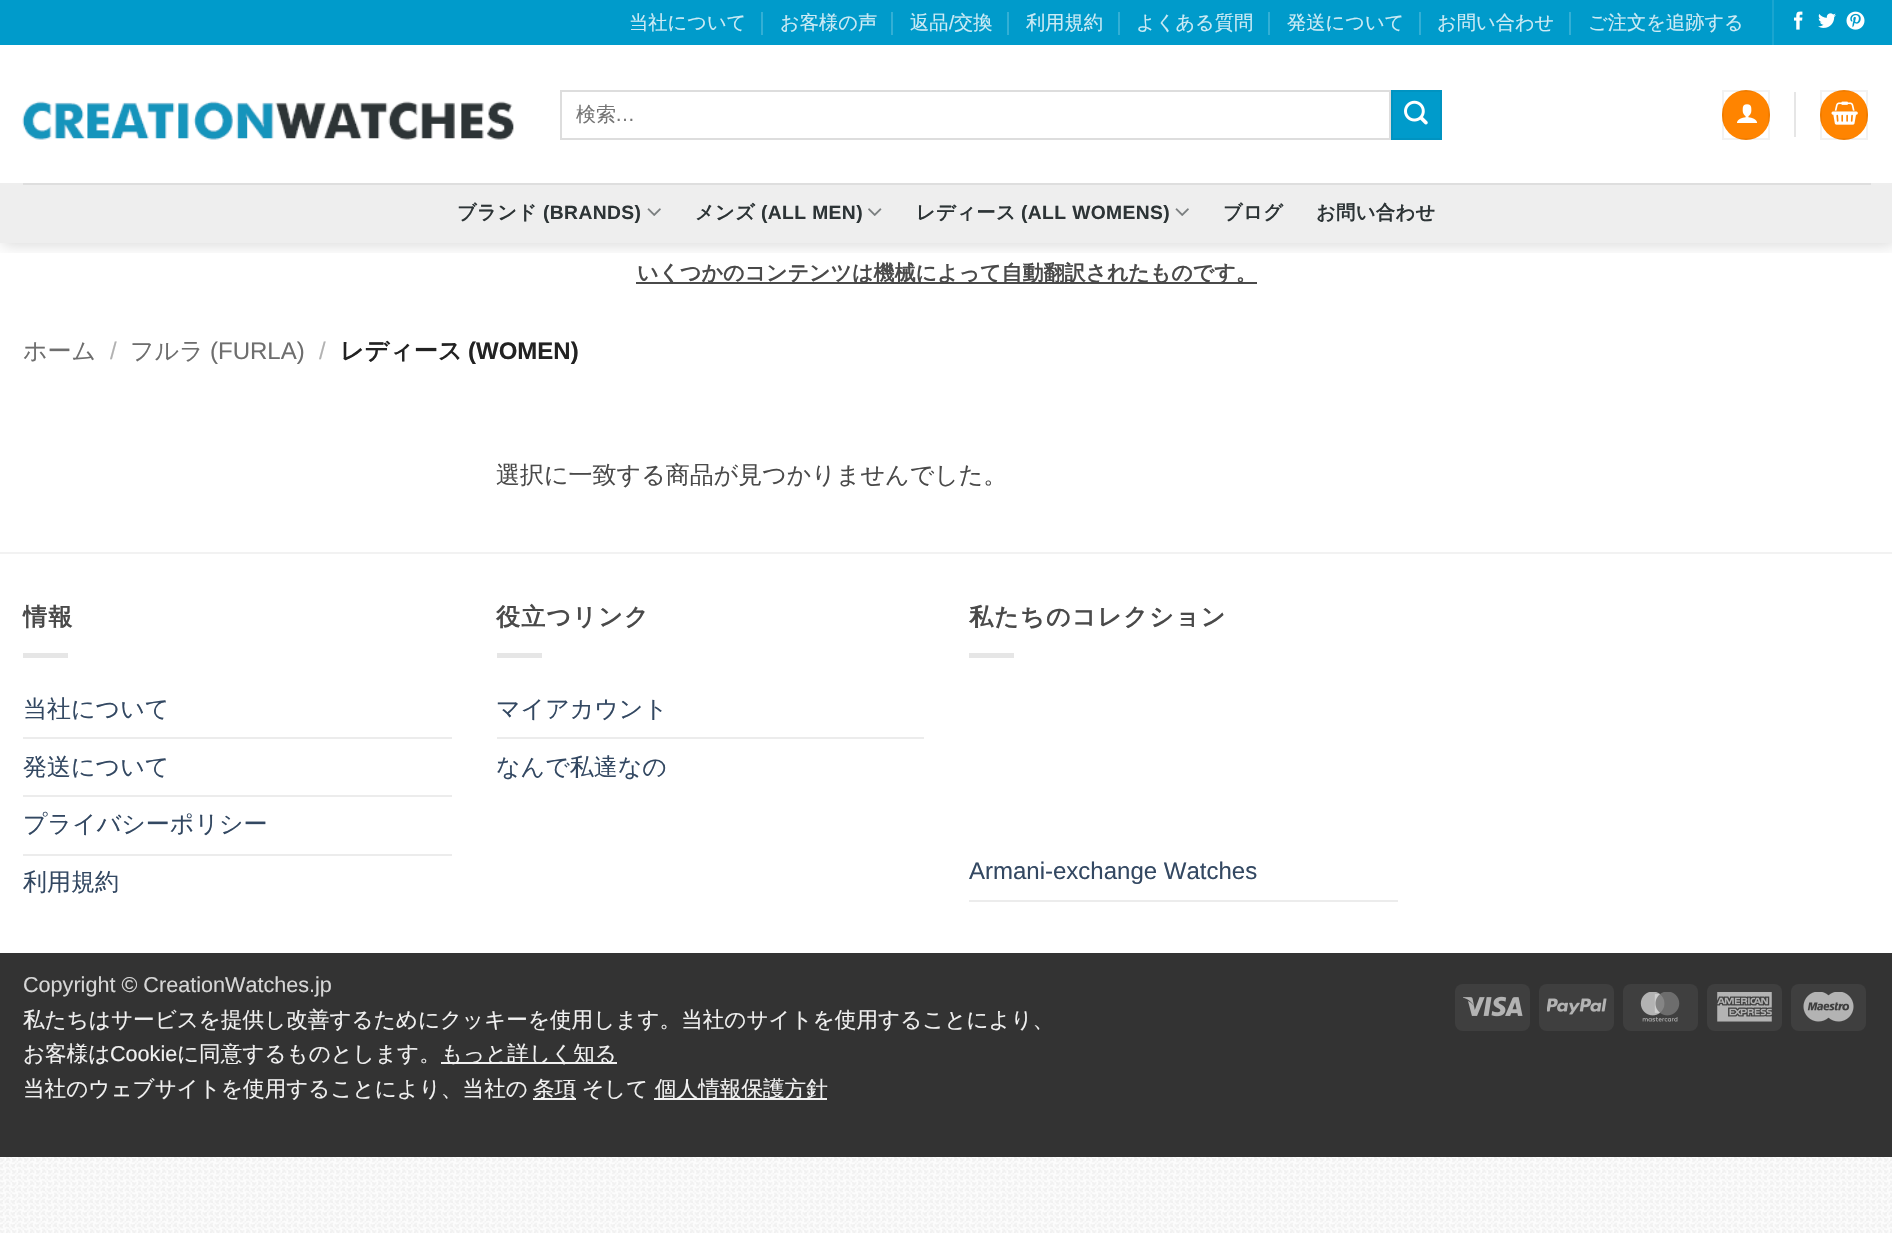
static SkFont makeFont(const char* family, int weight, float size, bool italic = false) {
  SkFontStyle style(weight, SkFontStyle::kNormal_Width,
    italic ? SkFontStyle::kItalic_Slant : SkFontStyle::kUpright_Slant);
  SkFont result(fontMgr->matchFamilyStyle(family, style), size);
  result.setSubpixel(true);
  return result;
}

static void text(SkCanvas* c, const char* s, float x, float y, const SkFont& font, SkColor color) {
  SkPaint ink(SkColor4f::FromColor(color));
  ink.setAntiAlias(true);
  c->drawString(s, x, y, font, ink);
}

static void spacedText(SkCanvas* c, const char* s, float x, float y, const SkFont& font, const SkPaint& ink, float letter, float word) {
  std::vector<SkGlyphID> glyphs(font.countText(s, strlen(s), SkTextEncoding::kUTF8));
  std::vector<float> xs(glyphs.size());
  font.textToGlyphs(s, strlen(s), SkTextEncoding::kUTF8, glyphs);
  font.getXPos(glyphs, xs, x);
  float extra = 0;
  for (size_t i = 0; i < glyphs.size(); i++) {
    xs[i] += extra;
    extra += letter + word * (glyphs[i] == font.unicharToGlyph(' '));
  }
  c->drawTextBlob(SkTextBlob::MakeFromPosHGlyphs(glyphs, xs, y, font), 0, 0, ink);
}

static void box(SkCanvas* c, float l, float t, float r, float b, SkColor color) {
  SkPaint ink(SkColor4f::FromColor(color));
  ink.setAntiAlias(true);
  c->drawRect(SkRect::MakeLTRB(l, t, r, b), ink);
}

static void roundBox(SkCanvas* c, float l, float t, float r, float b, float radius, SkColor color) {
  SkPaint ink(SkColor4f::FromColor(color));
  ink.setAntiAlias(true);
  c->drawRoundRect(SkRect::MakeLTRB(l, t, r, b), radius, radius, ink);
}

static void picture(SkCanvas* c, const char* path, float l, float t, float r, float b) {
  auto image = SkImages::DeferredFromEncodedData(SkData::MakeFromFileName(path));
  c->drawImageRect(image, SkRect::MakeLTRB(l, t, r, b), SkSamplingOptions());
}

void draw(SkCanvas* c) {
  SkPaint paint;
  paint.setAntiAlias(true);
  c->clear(0xffffffff);
  picture(c, "img_01.png", 0, 1157, 1892, 1233);
  c->save();
  c->clipRect(SkRect::MakeLTRB(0, 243, 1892, 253));
  paint.setColor(0x26000000);
  paint.setMaskFilter(SkMaskFilter::MakeBlur(kNormal_SkBlurStyle, 7.5f));
  c->drawRect(SkRect::MakeLTRB(2, 2, 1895, 245), paint);
  paint.setMaskFilter(nullptr);
  c->restore();
  box(c, 0, 0, 1892, 45, 0xff009bcb);
  SkFont face1 = makeFont("WenQuanYi Zen Hei", 500, 19.25f);
  text(c, "当社について", 629, 29, face1, 0xffccebf5);
  box(c, 761, 12, 763, 35, 0xff33afd5);
  text(c, "お客様の声", 780, 29, face1, 0xffccebf5);
  box(c, 891, 12, 893, 35, 0xff33afd5);
  text(c, "返品", 910, 29, face1, 0xffccebf5);
  SkFont face2 = makeFont("Liberation Sans", 400, 19.25f);
  text(c, "/", 949, 29, face2, 0xffccebf5);
  text(c, "交換", 954, 29, face1, 0xffccebf5);
  box(c, 1007, 12, 1009, 35, 0xff33afd5);
  text(c, "利用規約", 1026, 29, face1, 0xffccebf5);
  box(c, 1118, 12, 1120, 35, 0xff33afd5);
  text(c, "よくある質問", 1136, 29, face1, 0xffccebf5);
  box(c, 1268, 12, 1270, 35, 0xff33afd5);
  text(c, "発送について", 1287, 29, face1, 0xffccebf5);
  box(c, 1419, 12, 1421, 35, 0xff33afd5);
  text(c, "お問い合わせ", 1437, 29, face1, 0xffccebf5);
  box(c, 1569, 12, 1571, 35, 0xff33afd5);
  text(c, "ご注文を追跡する", 1588, 29, face1, 0xffccebf5);
  box(c, 1772, 0, 1774, 45, 0xff1aa5d0);
  picture(c, "img_02.png", 1794, 11, 1803, 30);
  picture(c, "img_03.png", 1818, 13, 1836, 28);
  picture(c, "img_04.png", 1846, 11, 1865, 30);
  picture(c, "img_05.png", 22, 101, 514, 140);
  paint.setStyle(SkPaint::kStroke_Style);
  paint.setStrokeWidth(2);
  paint.setColor(0xffdddddd);
  c->drawRect(SkRect::MakeLTRB(561, 91, 1390, 139), paint);
  SkFont face3 = makeFont("WenQuanYi Zen Hei", 500, 20);
  text(c, "検索", 576, 121, face3, 0xff757575);
  SkFont face4 = makeFont("Liberation Sans", 400, 20);
  text(c, "…", 615, 121, face4, 0xff757575);
  paint.setStyle(SkPaint::kFill_Style);
  paint.setColor(0xff009bcb);
  c->drawRect(SkRect::MakeLTRB(1392, 91, 1441, 139), paint);
  paint.setStyle(SkPaint::kStroke_Style);
  paint.setColor(0xff0093c1);
  c->drawRect(SkRect::MakeLTRB(1392, 91, 1441, 139), paint);
  picture(c, "img_06.png", 1404, 100, 1428, 125);
  roundBox(c, 1722, 90, 1770, 140, 24, 0xffff8400);
  paint.setColor(0x0d000000);
  c->drawRect(SkRect::MakeLTRB(1723, 91, 1769, 139), paint);
  picture(c, "img_07.png", 1737, 104, 1758, 123);
  box(c, 1794, 92, 1796, 137, 0xffe6e6e6);
  roundBox(c, 1820, 90, 1868, 140, 24, 0xffff8400);
  c->drawRect(SkRect::MakeLTRB(1821, 91, 1867, 139), paint);
  picture(c, "img_08.png", 1831, 101, 1858, 125);
  box(c, 0, 183, 1892, 243, 0xffeeeeee);
  box(c, 23, 183, 1871, 185, 0xffdedede);
  SkFont face5 = makeFont("WenQuanYi Zen Hei", 700, 19.25f);
  paint.setStyle(SkPaint::kFill_Style);
  paint.setColor(0xff2d3436);
  spacedText(c, "ブランド", 457, 219, face5, paint, 0.4f, 0);
  SkFont face6 = makeFont("Liberation Sans", 700, 19.25f);
  spacedText(c, "(BRANDS)", 543, 219, face6, paint, 0.4f, 0);
  picture(c, "img_09.png", 647, 208, 661, 216);
  spacedText(c, "メンズ", 695, 219, face5, paint, 0.4f, 0);
  spacedText(c, "(ALL MEN)", 761, 219, face6, paint, 0.4f, 0);
  picture(c, "img_10.png", 868, 208, 882, 216);
  spacedText(c, "レディース", 916, 219, face5, paint, 0.4f, 0);
  spacedText(c, "(ALL WOMENS)", 1021, 219, face6, paint, 0.4f, 0);
  picture(c, "img_09.png", 1175, 208, 1189, 216);
  spacedText(c, "ブログ", 1223, 219, face5, paint, 0.4f, 0);
  spacedText(c, "お問い合わせ", 1316, 219, face5, paint, 0.4f, 0);
  box(c, 636, 282, 1257, 284, 0xff4a4a4a);
  SkFont face7 = makeFont("WenQuanYi Zen Hei", 700, 21);
  text(c, "いくつかのコンテンツは機械によって自動翻訳されたものです。", 637, 280, face7, 0xff4a4a4a);
  SkFont face8 = makeFont("WenQuanYi Zen Hei", 500, 24);
  text(c, "ホーム", 23, 359, face8, 0xff6e6e6e);
  SkFont face9 = makeFont("Liberation Sans", 400, 24);
  text(c, "/", 110, 359, face9, 0xffb2b2b2);
  text(c, "フルラ", 130, 359, face8, 0xff6e6e6e);
  text(c, "(FURLA)", 210, 359, face9, 0xff6e6e6e);
  text(c, "/", 319, 359, face9, 0xffb2b2b2);
  SkFont face10 = makeFont("WenQuanYi Zen Hei", 700, 24);
  text(c, "レディース", 340, 359, face10, 0xff222222);
  SkFont face11 = makeFont("Liberation Sans", 700, 24);
  text(c, "(WOMEN)", 468, 359, face11, 0xff222222);
  text(c, "選択に一致する商品が見つかりませんでした。", 496, 483, face8, 0xff4a4a4a);
  box(c, 0, 552, 1892, 554, 0xfff2f2f2);
  paint.setColor(0xff4a4a4a);
  spacedText(c, "情報", 23, 625, face10, paint, 1.25f, 0);
  box(c, 23, 653, 68, 658, 0xffe6e6e6);
  text(c, "当社について", 23, 717, face8, 0xff334862);
  box(c, 23, 737, 452, 739, 0xffececec);
  text(c, "発送について", 23, 775, face8, 0xff334862);
  box(c, 23, 795, 452, 797, 0xffececec);
  text(c, "プライバシーポリシー", 23, 832, face8, 0xff334862);
  box(c, 23, 854, 452, 856, 0xffececec);
  text(c, "利用規約", 23, 890, face8, 0xff334862);
  spacedText(c, "役立つリンク", 496, 625, face10, paint, 1.25f, 0);
  box(c, 497, 653, 542, 658, 0xffe6e6e6);
  text(c, "マイアカウント", 496, 717, face8, 0xff334862);
  box(c, 497, 737, 924, 739, 0xffececec);
  text(c, "なんで私達なの", 496, 775, face8, 0xff334862);
  spacedText(c, "私たちのコレクション", 969, 625, face10, paint, 1.25f, 0);
  box(c, 969, 653, 1014, 658, 0xffe6e6e6);
  text(c, "Armani-exchange Watches", 969, 879, face9, 0xff334862);
  box(c, 969, 900, 1398, 902, 0xffececec);
  box(c, 0, 953, 1892, 1157, 0xff333333);
  SkFont face12 = makeFont("Liberation Sans", 400, 21.6f);
  text(c, "Copyright © CreationWatches.jp", 23, 992, face12, 0xffd6d6d6);
  SkFont face13 = makeFont("WenQuanYi Zen Hei", 500, 21.6f);
  text(c, "私たちはサービスを提供し改善するためにクッキーを使用します。当社のサイトを使用することにより、", 23, 1027, face13, 0xfff1f1f1);
  text(c, "お客様は", 23, 1061, face13, 0xfff1f1f1);
  text(c, "Cookie", 110, 1061, face12, 0xfff1f1f1);
  text(c, "に同意するものとします。", 177, 1061, face13, 0xfff1f1f1);
  box(c, 441, 1062, 617, 1064, 0xfff1f1f1);
  text(c, "もっと詳しく知る", 441, 1061, face13, 0xfff1f1f1);
  text(c, "当社のウェブサイトを使用することにより、当社の", 23, 1096, face13, 0xfff1f1f1);
  box(c, 533, 1098, 576, 1100, 0xfff1f1f1);
  text(c, "条項", 533, 1096, face13, 0xfff1f1f1);
  text(c, "そして", 582, 1096, face13, 0xfff1f1f1);
  box(c, 654, 1098, 827, 1100, 0xfff1f1f1);
  text(c, "個人情報保護方針", 655, 1096, face13, 0xfff1f1f1);
  roundBox(c, 1455, 984, 1530, 1031, 8, 0xff3f3f3f);
  picture(c, "img_11.png", 1463, 996, 1523, 1017);
  roundBox(c, 1539, 984, 1614, 1031, 8, 0xff3f3f3f);
  picture(c, "img_12.png", 1547, 998, 1607, 1015);
  roundBox(c, 1623, 984, 1698, 1031, 8, 0xff3f3f3f);
  picture(c, "img_13.png", 1640, 992, 1680, 1022);
  roundBox(c, 1707, 984, 1782, 1031, 8, 0xff3f3f3f);
  picture(c, "img_14.png", 1717, 992, 1772, 1022);
  roundBox(c, 1791, 984, 1866, 1031, 8, 0xff3f3f3f);
  picture(c, "img_15.png", 1803, 992, 1854, 1022);
}
